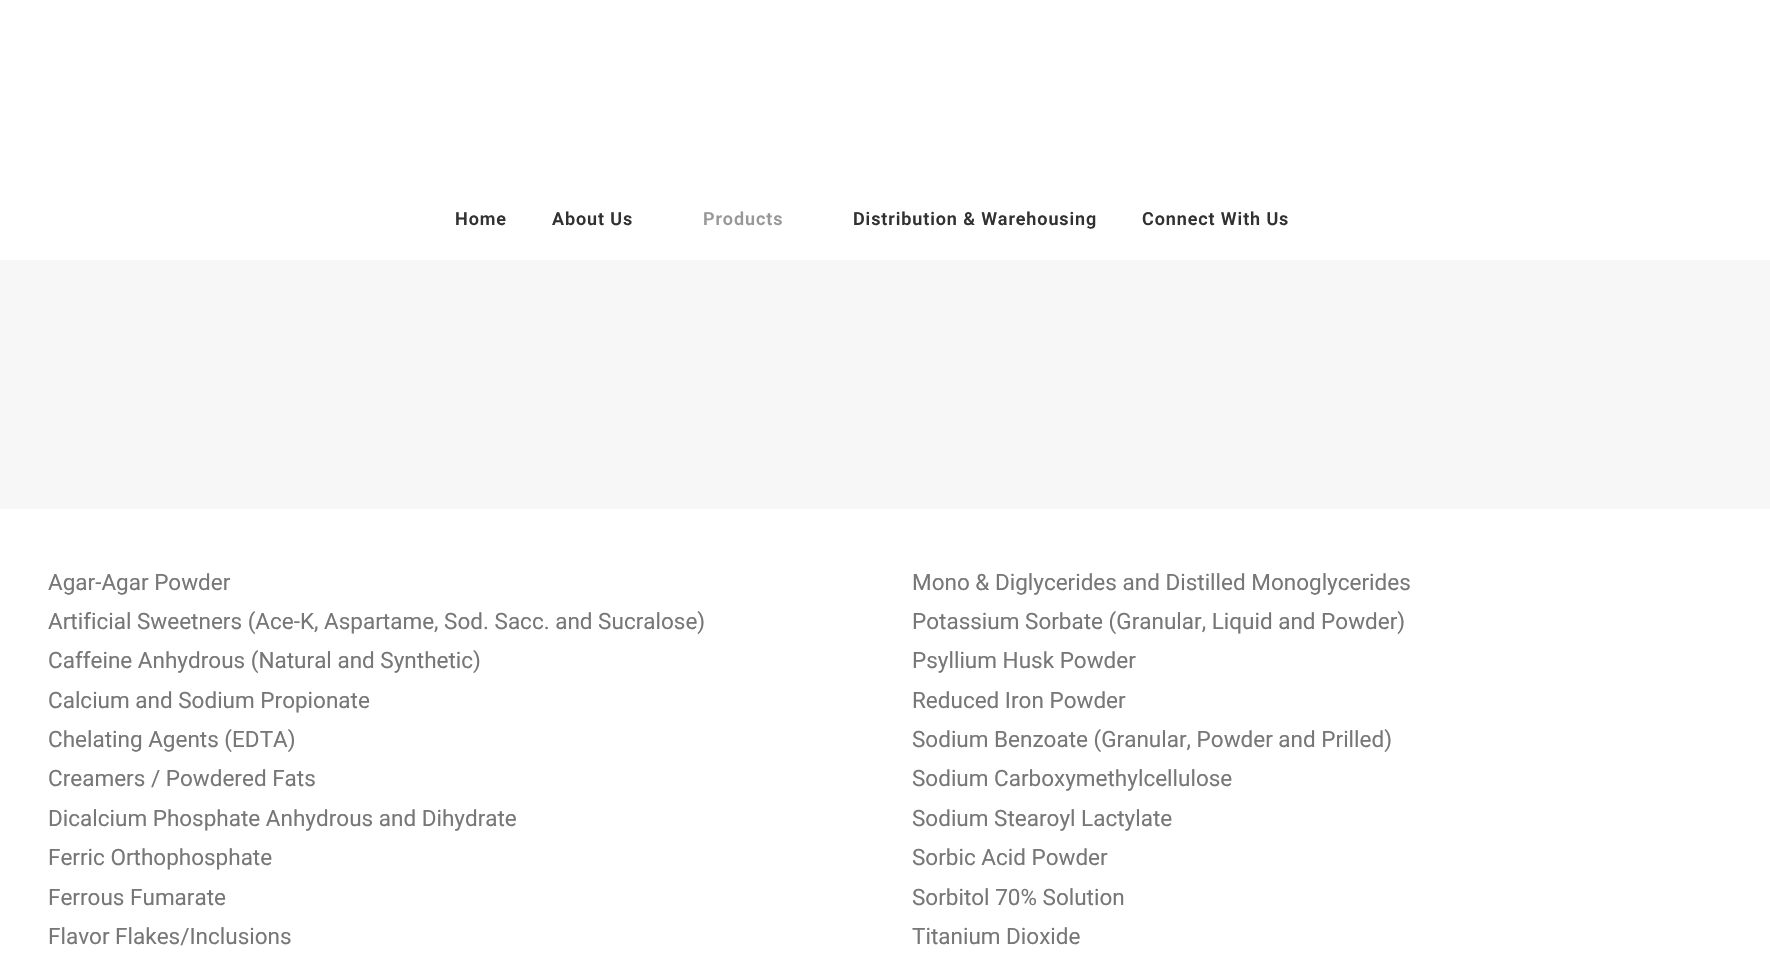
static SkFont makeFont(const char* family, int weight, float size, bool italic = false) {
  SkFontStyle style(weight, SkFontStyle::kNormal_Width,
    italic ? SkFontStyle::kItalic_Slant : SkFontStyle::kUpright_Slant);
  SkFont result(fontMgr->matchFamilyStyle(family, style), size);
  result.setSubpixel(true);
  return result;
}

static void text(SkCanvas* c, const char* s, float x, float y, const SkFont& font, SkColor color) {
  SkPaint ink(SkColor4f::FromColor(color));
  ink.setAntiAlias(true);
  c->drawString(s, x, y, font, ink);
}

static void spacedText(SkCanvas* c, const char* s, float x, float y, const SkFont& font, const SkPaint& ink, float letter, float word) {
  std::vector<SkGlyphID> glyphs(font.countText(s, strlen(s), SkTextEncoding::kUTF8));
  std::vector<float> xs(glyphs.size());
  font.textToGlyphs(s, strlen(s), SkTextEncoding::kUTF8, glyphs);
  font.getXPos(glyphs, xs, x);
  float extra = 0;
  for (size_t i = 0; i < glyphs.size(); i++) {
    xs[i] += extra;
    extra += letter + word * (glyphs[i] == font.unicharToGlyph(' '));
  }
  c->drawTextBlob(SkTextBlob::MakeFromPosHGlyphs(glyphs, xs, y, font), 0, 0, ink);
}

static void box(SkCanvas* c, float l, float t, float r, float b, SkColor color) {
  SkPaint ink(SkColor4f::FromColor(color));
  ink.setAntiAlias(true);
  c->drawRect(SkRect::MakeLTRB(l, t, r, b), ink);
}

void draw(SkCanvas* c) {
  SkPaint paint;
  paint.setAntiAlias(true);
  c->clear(0xfff7f7f7);
  box(c, 0, 0, 1770, 260, 0xffffffff);
  SkFont face1 = makeFont("Roboto", 600, 18);
  paint.setColor(0xff303133);
  spacedText(c, "Home", 455, 225, face1, paint, 0.9f, 0);
  spacedText(c, "About Us", 552, 225, face1, paint, 0.9f, 0);
  paint.setColor(0xff989899);
  spacedText(c, "Products", 703, 225, face1, paint, 0.9f, 0);
  paint.setColor(0xff303133);
  spacedText(c, "Distribution & Warehousing", 853, 225, face1, paint, 0.9f, 0);
  spacedText(c, "Connect With Us", 1142, 225, face1, paint, 0.9f, 0);
  box(c, 0, 509, 1770, 971, 0xffffffff);
  SkFont face2 = makeFont("Roboto", 400, 22.5f);
  text(c, "Agar-Agar Powder", 48, 590, face2, 0xff777777);
  text(c, "Artificial Sweetners (Ace-K, Aspartame, Sod. Sacc. and Sucralose)", 48, 629, face2, 0xff777777);
  text(c, "Caffeine Anhydrous (Natural and Synthetic)", 48, 668, face2, 0xff777777);
  text(c, "Calcium and Sodium Propionate", 48, 708, face2, 0xff777777);
  text(c, "Chelating Agents (EDTA)", 48, 747, face2, 0xff777777);
  text(c, "Creamers / Powdered Fats", 48, 786, face2, 0xff777777);
  text(c, "Dicalcium Phosphate Anhydrous and Dihydrate", 48, 826, face2, 0xff777777);
  text(c, "Ferric Orthophosphate", 48, 865, face2, 0xff777777);
  text(c, "Ferrous Fumarate", 48, 905, face2, 0xff777777);
  text(c, "Flavor Flakes/Inclusions", 48, 944, face2, 0xff777777);
  text(c, "Mono & Diglycerides and Distilled Monoglycerides", 912, 590, face2, 0xff777777);
  text(c, "Potassium Sorbate (Granular, Liquid and Powder)", 912, 629, face2, 0xff777777);
  text(c, "Psyllium Husk Powder", 912, 668, face2, 0xff777777);
  text(c, "Reduced Iron Powder", 912, 708, face2, 0xff777777);
  text(c, "Sodium Benzoate (Granular, Powder and Prilled)", 912, 747, face2, 0xff777777);
  text(c, "Sodium Carboxymethylcellulose", 912, 786, face2, 0xff777777);
  text(c, "Sodium Stearoyl Lactylate", 912, 826, face2, 0xff777777);
  text(c, "Sorbic Acid Powder", 912, 865, face2, 0xff777777);
  text(c, "Sorbitol 70% Solution", 912, 905, face2, 0xff777777);
  text(c, "Titanium Dioxide", 912, 944, face2, 0xff777777);
}
